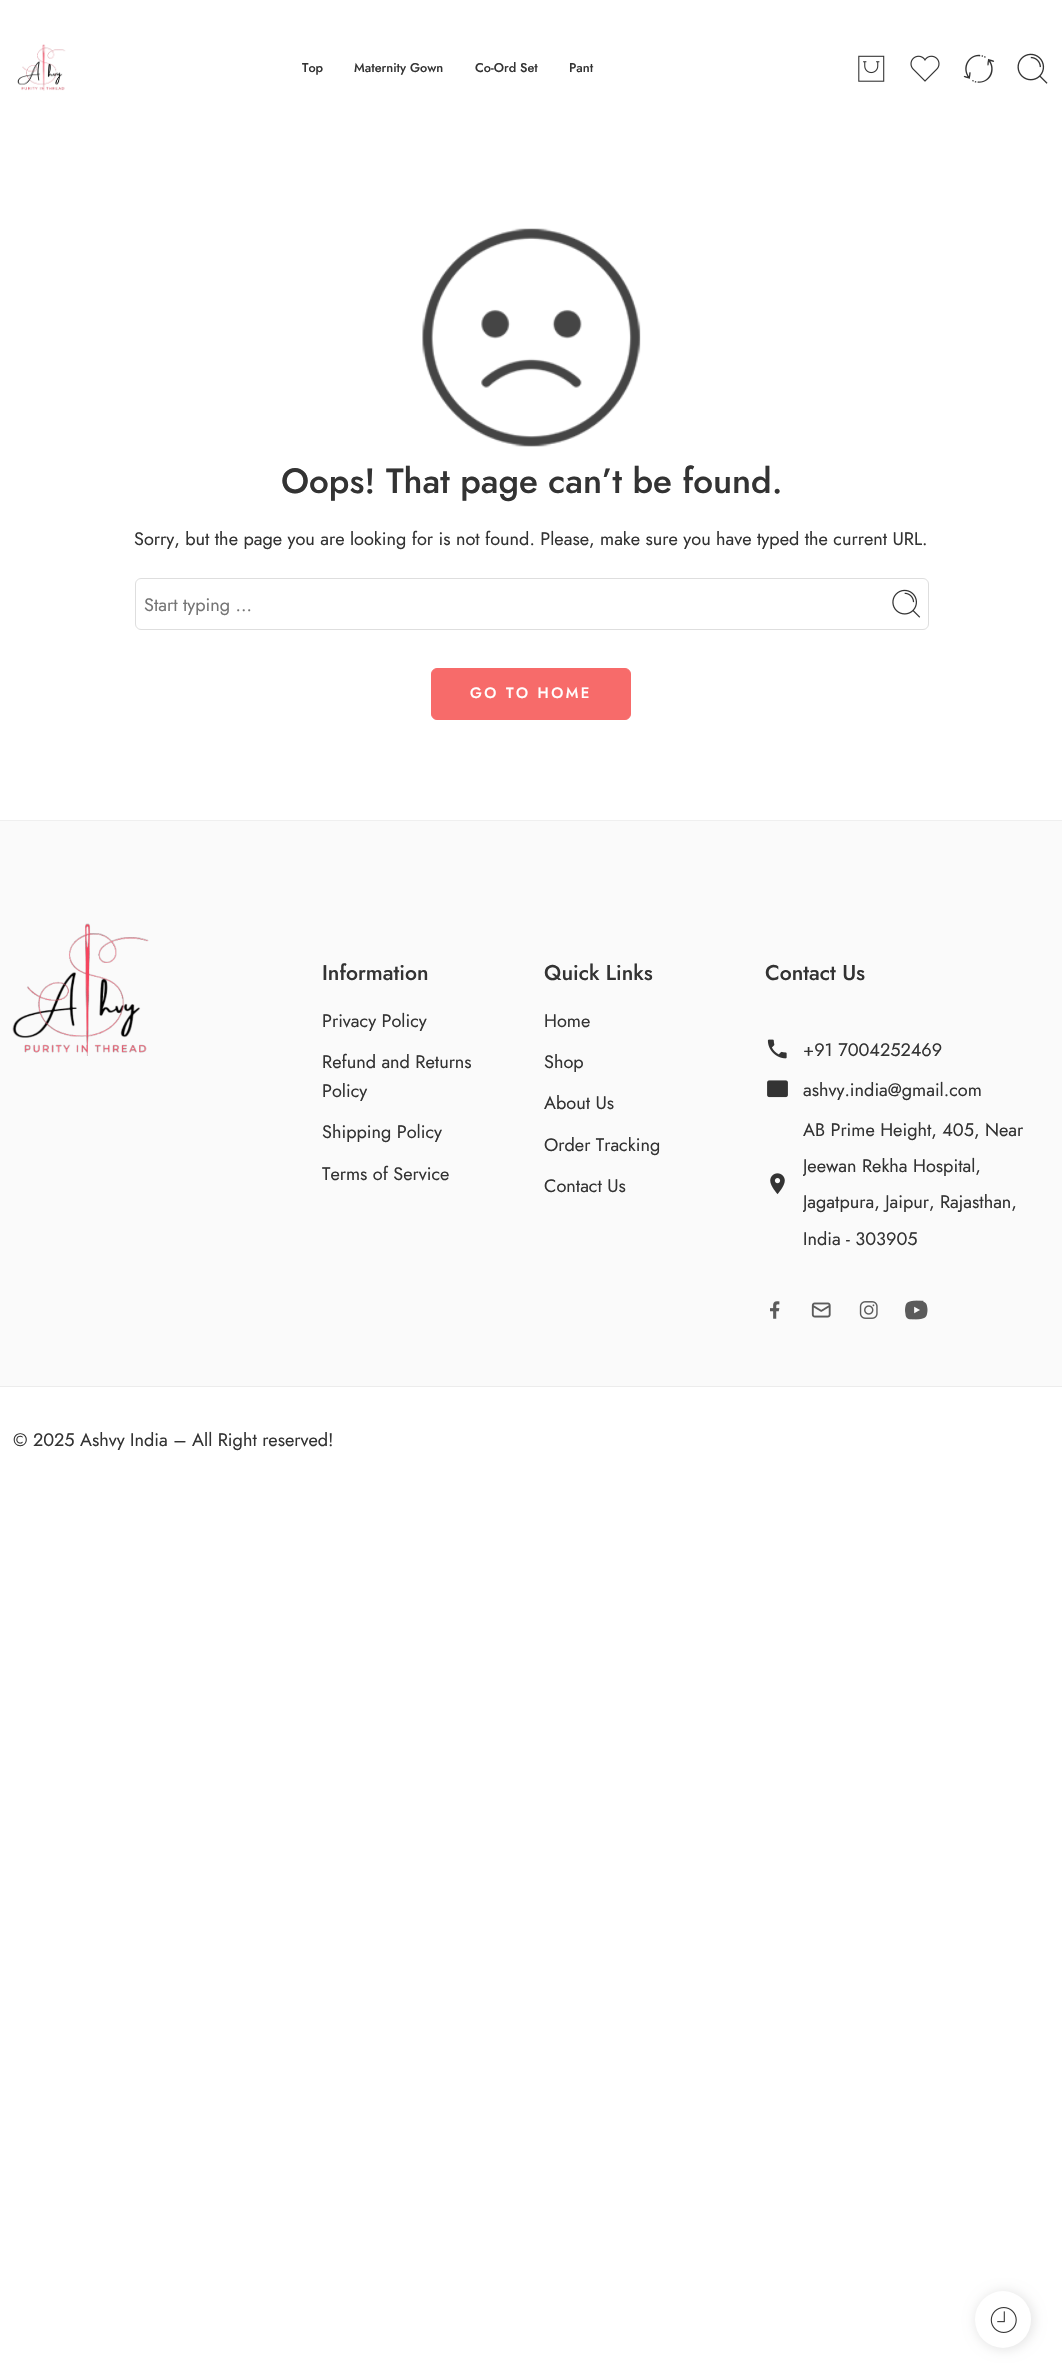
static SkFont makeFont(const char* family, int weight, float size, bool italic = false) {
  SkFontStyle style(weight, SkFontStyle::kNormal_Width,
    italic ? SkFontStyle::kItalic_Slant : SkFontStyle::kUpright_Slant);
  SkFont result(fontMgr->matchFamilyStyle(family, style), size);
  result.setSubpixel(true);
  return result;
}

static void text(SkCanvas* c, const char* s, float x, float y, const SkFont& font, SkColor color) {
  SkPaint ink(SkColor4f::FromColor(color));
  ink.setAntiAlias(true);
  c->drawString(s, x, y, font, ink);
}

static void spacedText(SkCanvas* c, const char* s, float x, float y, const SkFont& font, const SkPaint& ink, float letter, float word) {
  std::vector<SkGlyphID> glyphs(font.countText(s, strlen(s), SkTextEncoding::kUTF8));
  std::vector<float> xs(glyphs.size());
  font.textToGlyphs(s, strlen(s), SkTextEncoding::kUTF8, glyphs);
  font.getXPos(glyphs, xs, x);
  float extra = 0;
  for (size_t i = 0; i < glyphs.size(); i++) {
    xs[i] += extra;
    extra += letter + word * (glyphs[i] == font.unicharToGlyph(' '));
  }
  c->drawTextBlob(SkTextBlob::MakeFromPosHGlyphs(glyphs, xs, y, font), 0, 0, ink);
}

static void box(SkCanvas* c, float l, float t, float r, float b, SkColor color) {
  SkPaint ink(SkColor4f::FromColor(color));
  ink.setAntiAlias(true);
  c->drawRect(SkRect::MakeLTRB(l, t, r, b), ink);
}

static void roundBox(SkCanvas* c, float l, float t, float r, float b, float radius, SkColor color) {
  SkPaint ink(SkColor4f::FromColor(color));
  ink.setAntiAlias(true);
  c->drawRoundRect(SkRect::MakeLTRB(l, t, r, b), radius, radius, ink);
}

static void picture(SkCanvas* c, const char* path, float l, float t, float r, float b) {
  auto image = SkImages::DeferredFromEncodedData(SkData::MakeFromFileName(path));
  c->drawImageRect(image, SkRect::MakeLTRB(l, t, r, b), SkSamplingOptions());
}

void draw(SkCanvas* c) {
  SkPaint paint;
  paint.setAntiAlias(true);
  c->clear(0xffffffff);
  picture(c, "img_01.png", 17, 44, 66, 91);
  SkFont face1 = makeFont("Jost", 500, 12.75f);
  text(c, "Top", 302, 72, face1, 0xff333333);
  text(c, "Maternity Gown", 354, 72, face1, 0xff333333);
  text(c, "Co-Ord Set", 475, 72, face1, 0xff333333);
  text(c, "Pant", 569, 72, face1, 0xff333333);
  picture(c, "img_02.png", 858, 55, 885, 82);
  picture(c, "img_03.png", 910, 55, 940, 82);
  picture(c, "img_04.png", 963, 54, 995, 83);
  picture(c, "img_05.png", 1017, 53, 1048, 84);
  picture(c, "img_06.png", 422, 228, 641, 447);
  SkFont face2 = makeFont("Jost", 500, 35);
  text(c, "Oops! That page can’t be found.", 281, 493, face2, 0xff333333);
  SkFont face3 = makeFont("Jost", 400, 18.1f);
  text(c, "Sorry, but the page you are looking for is not found. Please, make sure you have typed the current URL.", 134, 545, face3, 0xff333333);
  paint.setStyle(SkPaint::kStroke_Style);
  paint.setStrokeWidth(1);
  paint.setColor(0xffdedede);
  c->drawRoundRect(SkRect::MakeLTRB(135.5f, 578.5f, 928.5f, 629.5f), 5.5f, 5.5f, paint);
  text(c, "Start typing ...", 144, 611, face3, 0xff757575);
  picture(c, "img_07.png", 892, 589, 921, 618);
  paint.setStyle(SkPaint::kFill_Style);
  paint.setColor(0xfff76b6a);
  c->drawRoundRect(SkRect::MakeLTRB(431.5f, 668.5f, 630.5f, 719.5f), 5.5f, 5.5f, paint);
  paint.setStyle(SkPaint::kStroke_Style);
  c->drawRoundRect(SkRect::MakeLTRB(431.5f, 668.5f, 630.5f, 719.5f), 5.5f, 5.5f, paint);
  SkFont face4 = makeFont("Jost", 500, 15);
  paint.setStyle(SkPaint::kFill_Style);
  paint.setColor(0xffffffff);
  spacedText(c, "GO TO HOME", 470, 698, face4, paint, 2.5f, 0);
  box(c, 0, 821, 1062, 1386, 0xfffafafa);
  box(c, 0, 820, 1062, 821, 0xffefefef);
  picture(c, "img_08.png", 12, 923, 149, 1056);
  SkFont face5 = makeFont("Jost", 500, 21.25f);
  text(c, "Information", 322, 980, face5, 0xff333333);
  text(c, "Privacy Policy", 322, 1027, face3, 0xff333333);
  text(c, "Refund and Returns", 322, 1068, face3, 0xff333333);
  text(c, "Policy", 322, 1097, face3, 0xff333333);
  text(c, "Shipping Policy", 322, 1138, face3, 0xff333333);
  text(c, "Terms of Service", 322, 1180, face3, 0xff333333);
  text(c, "Quick Links", 544, 980, face5, 0xff333333);
  text(c, "Home", 544, 1027, face3, 0xff333333);
  text(c, "Shop", 544, 1068, face3, 0xff333333);
  text(c, "About Us", 544, 1109, face3, 0xff333333);
  text(c, "Order Tracking", 544, 1151, face3, 0xff333333);
  text(c, "Contact Us", 544, 1192, face3, 0xff333333);
  text(c, "Contact Us", 765, 980, face5, 0xff333333);
  picture(c, "img_09.png", 767, 1039, 787, 1059);
  text(c, "+91 7004252469", 803, 1056, face3, 0xff333333);
  picture(c, "img_10.png", 767, 1080, 788, 1098);
  text(c, "ashvy.india@gmail.com", 803, 1096, face3, 0xff333333);
  picture(c, "img_11.png", 770, 1173, 785, 1195);
  text(c, "AB Prime Height, 405, Near", 803, 1136, face3, 0xff333333);
  c->save();
  c->clipRect(SkRect::MakeLTRB(803, 1111, 1050, 1256));
  text(c, "Jeewan Rekha Hospital,", 803, 1172, face3, 0xff333333);
  text(c, "Jagatpura, Jaipur, Rajasthan,", 803, 1208, face3, 0xff333333);
  c->restore();
  text(c, "India - 303905", 803, 1245, face3, 0xff333333);
  picture(c, "img_12.png", 770, 1301, 780, 1319);
  picture(c, "img_13.png", 811, 1302, 831, 1318);
  picture(c, "img_14.png", 859, 1301, 878, 1319);
  picture(c, "img_15.png", 905, 1300, 928, 1320);
  box(c, 0, 1386, 1062, 1387, 0xffececec);
  text(c, "© 2025 Ashvy India – All Right reserved!", 13, 1446, face3, 0xff333333);
  paint.setColor(0x1a000000);
  paint.setMaskFilter(SkMaskFilter::MakeBlur(kNormal_SkBlurStyle, 6));
  c->drawRoundRect(SkRect::MakeLTRB(975, 2291, 1034, 2350), 29.5f, 29.5f, paint);
  paint.setMaskFilter(nullptr);
  roundBox(c, 975, 2291, 1031, 2348, 28, 0xffffffff);
  picture(c, "img_16.png", 990, 2307, 1017, 2333);
}
